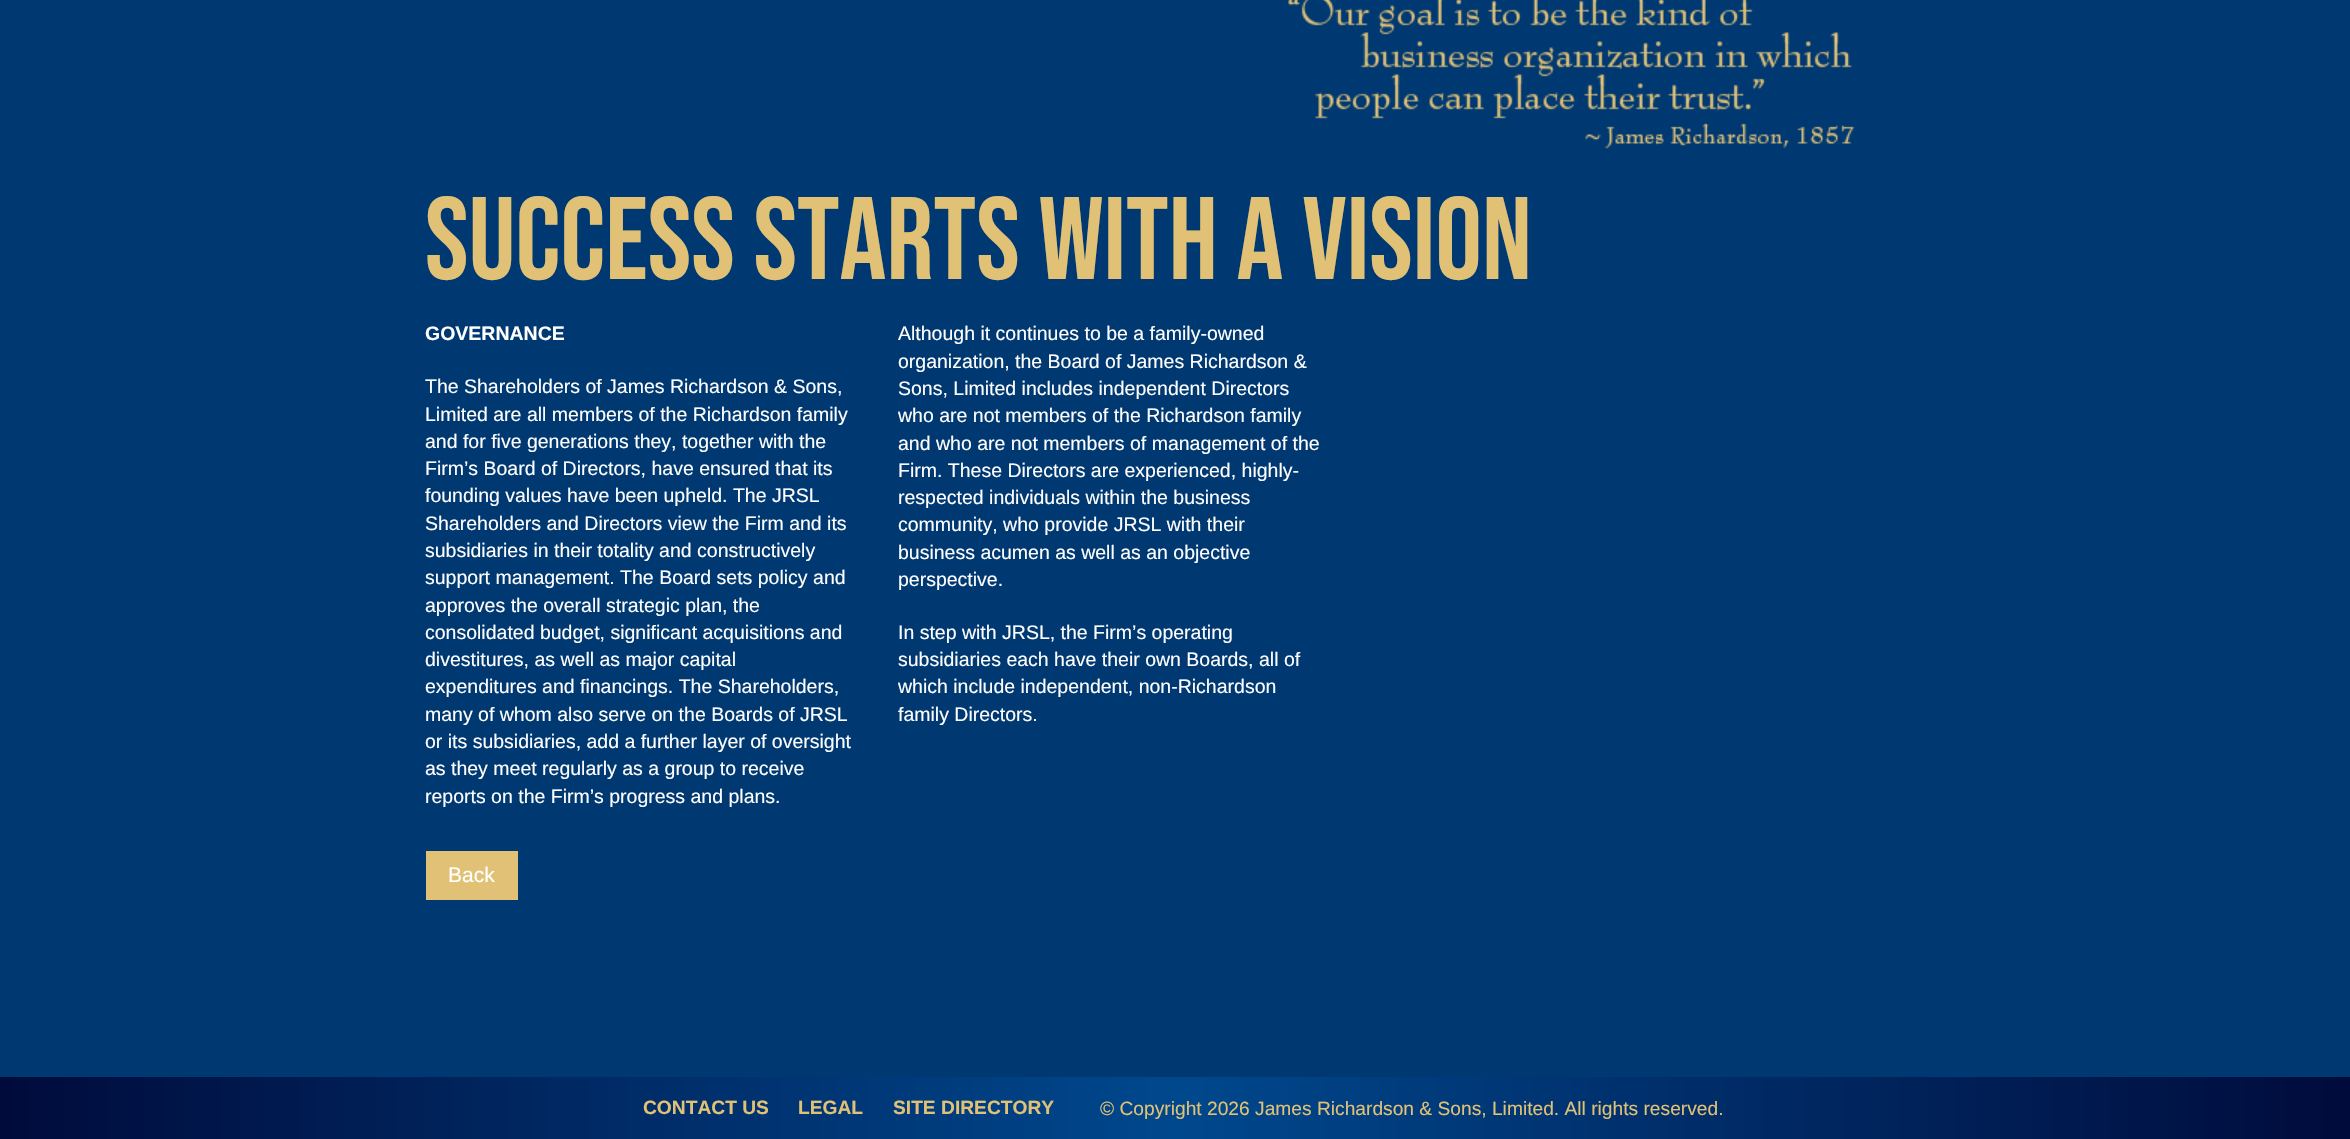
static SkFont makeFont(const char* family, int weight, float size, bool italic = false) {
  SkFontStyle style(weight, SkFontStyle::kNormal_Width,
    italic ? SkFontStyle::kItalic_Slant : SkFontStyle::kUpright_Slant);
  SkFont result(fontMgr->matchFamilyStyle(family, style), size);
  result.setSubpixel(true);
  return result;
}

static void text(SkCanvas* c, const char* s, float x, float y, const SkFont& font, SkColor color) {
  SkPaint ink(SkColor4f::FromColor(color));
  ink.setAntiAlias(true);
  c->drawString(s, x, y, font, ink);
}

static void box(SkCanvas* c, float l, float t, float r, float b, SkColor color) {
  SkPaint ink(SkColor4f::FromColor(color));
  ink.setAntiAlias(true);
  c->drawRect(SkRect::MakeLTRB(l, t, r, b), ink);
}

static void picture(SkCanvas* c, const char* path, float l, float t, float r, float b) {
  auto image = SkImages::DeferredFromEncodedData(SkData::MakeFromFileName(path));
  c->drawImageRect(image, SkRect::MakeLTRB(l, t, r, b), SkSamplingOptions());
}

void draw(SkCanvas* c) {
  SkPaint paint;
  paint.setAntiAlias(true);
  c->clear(0xff003871);
  picture(c, "img_01.png", 1288, 0, 1855, 149);
  SkFont face1 = makeFont("Bebas Neue", 400, 117);
  text(c, "SUCCESS STARTS WITH A VISION", 425, 279, face1, 0xffe0c176);
  SkFont face2 = makeFont("Liberation Sans", 700, 19.5f);
  text(c, "GOVERNANCE", 425, 340, face2, 0xffffffff);
  SkFont face3 = makeFont("Liberation Sans", 400, 19.5f);
  text(c, "The Shareholders of James Richardson & Sons,", 425, 393, face3, 0xffffffff);
  text(c, "Limited are all members of the Richardson family", 425, 421, face3, 0xffffffff);
  text(c, "and for five generations they, together with the", 425, 448, face3, 0xffffffff);
  text(c, "Firm’s Board of Directors, have ensured that its", 425, 475, face3, 0xffffffff);
  text(c, "founding values have been upheld. The JRSL", 425, 502, face3, 0xffffffff);
  text(c, "Shareholders and Directors view the Firm and its", 425, 530, face3, 0xffffffff);
  text(c, "subsidiaries in their totality and constructively", 425, 557, face3, 0xffffffff);
  text(c, "support management. The Board sets policy and", 425, 584, face3, 0xffffffff);
  text(c, "approves the overall strategic plan, the", 425, 612, face3, 0xffffffff);
  text(c, "consolidated budget, significant acquisitions and", 425, 639, face3, 0xffffffff);
  text(c, "divestitures, as well as major capital", 425, 666, face3, 0xffffffff);
  text(c, "expenditures and financings. The Shareholders,", 425, 693, face3, 0xffffffff);
  text(c, "many of whom also serve on the Boards of JRSL", 425, 721, face3, 0xffffffff);
  text(c, "or its subsidiaries, add a further layer of oversight", 425, 748, face3, 0xffffffff);
  text(c, "as they meet regularly as a group to receive", 425, 775, face3, 0xffffffff);
  text(c, "reports on the Firm’s progress and plans.", 425, 803, face3, 0xffffffff);
  text(c, "Although it continues to be a family-owned", 898, 340, face3, 0xffffffff);
  text(c, "organization, the Board of James Richardson &", 898, 368, face3, 0xffffffff);
  text(c, "Sons, Limited includes independent Directors", 898, 395, face3, 0xffffffff);
  text(c, "who are not members of the Richardson family", 898, 422, face3, 0xffffffff);
  text(c, "and who are not members of management of the", 898, 450, face3, 0xffffffff);
  text(c, "Firm. These Directors are experienced, highly-", 898, 477, face3, 0xffffffff);
  text(c, "respected individuals within the business", 898, 504, face3, 0xffffffff);
  text(c, "community, who provide JRSL with their", 898, 531, face3, 0xffffffff);
  text(c, "business acumen as well as an objective", 898, 559, face3, 0xffffffff);
  text(c, "perspective.", 898, 586, face3, 0xffffffff);
  text(c, "In step with JRSL, the Firm’s operating", 898, 639, face3, 0xffffffff);
  text(c, "subsidiaries each have their own Boards, all of", 898, 666, face3, 0xffffffff);
  text(c, "which include independent, non-Richardson", 898, 693, face3, 0xffffffff);
  text(c, "family Directors.", 898, 721, face3, 0xffffffff);
  box(c, 426, 851, 518, 900, 0xffe0c176);
  SkFont face4 = makeFont("Liberation Sans", 400, 21);
  text(c, "Back", 448, 882, face4, 0xffffffff);
  {
    const SkColor colors[] = {0xff000b3b, 0xff00488d, 0xff000b3b};
    const float stops[] = {0, 0.5f, 1};
    const SkPoint ends[] = {{0, 1109}, {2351, 1109}};
    paint.setShader(SkGradientShader::MakeLinear(ends, colors, stops, 3, SkTileMode::kClamp));
    paint.setAlpha(255);
  }
  c->drawRect(SkRect::MakeLTRB(0, 1077, 2350, 1139), paint);
  SkFont face5 = makeFont("Liberation Sans", 700, 19.2f);
  text(c, "CONTACT US", 643, 1114, face5, 0xffe0c176);
  text(c, "LEGAL", 798, 1114, face5, 0xffe0c176);
  text(c, "SITE DIRECTORY", 893, 1114, face5, 0xffe0c176);
  SkFont face6 = makeFont("Liberation Sans", 400, 19.2f);
  text(c, "© Copyright 2026 James Richardson & Sons, Limited. All rights reserved.", 1100, 1115, face6, 0xffe0c176);
}
